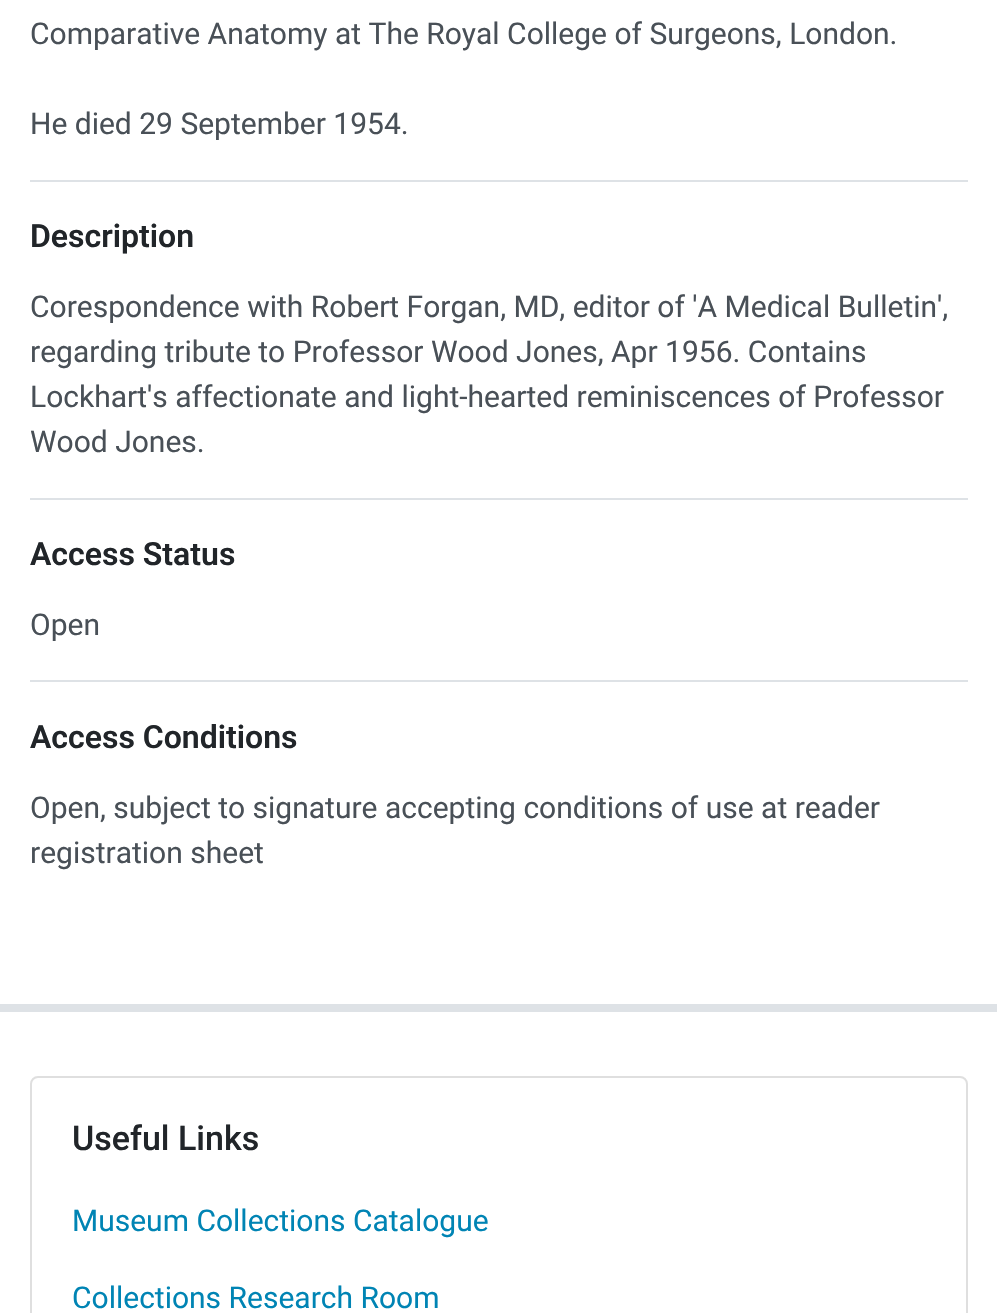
static SkFont makeFont(const char* family, int weight, float size, bool italic = false) {
  SkFontStyle style(weight, SkFontStyle::kNormal_Width,
    italic ? SkFontStyle::kItalic_Slant : SkFontStyle::kUpright_Slant);
  SkFont result(fontMgr->matchFamilyStyle(family, style), size);
  result.setSubpixel(true);
  return result;
}

static void text(SkCanvas* c, const char* s, float x, float y, const SkFont& font, SkColor color) {
  SkPaint ink(SkColor4f::FromColor(color));
  ink.setAntiAlias(true);
  c->drawString(s, x, y, font, ink);
}

static void box(SkCanvas* c, float l, float t, float r, float b, SkColor color) {
  SkPaint ink(SkColor4f::FromColor(color));
  ink.setAntiAlias(true);
  c->drawRect(SkRect::MakeLTRB(l, t, r, b), ink);
}

void draw(SkCanvas* c) {
  SkPaint paint;
  paint.setAntiAlias(true);
  c->clear(0xffffffff);
  SkFont face1 = makeFont("Roboto", 400, 30);
  text(c, "Comparative Anatomy at The Royal College of Surgeons, London.", 30, 44, face1, 0xff495057);
  text(c, "He died 29 September 1954.", 30, 134, face1, 0xff495057);
  box(c, 30, 180, 968, 182, 0xffdee2e6);
  SkFont face2 = makeFont("Roboto", 600, 32);
  text(c, "Description", 30, 247, face2, 0xff212529);
  text(c, "Corespondence with Robert Forgan, MD, editor of 'A Medical Bulletin',", 30, 317, face1, 0xff495057);
  text(c, "regarding tribute to Professor Wood Jones, Apr 1956. Contains", 30, 362, face1, 0xff495057);
  text(c, "Lockhart's affectionate and light-hearted reminiscences of Professor", 30, 407, face1, 0xff495057);
  text(c, "Wood Jones.", 30, 452, face1, 0xff495057);
  box(c, 30, 498, 968, 500, 0xffdee2e6);
  text(c, "Access Status", 30, 565, face2, 0xff212529);
  text(c, "Open", 30, 635, face1, 0xff495057);
  box(c, 30, 680, 968, 682, 0xffdee2e6);
  text(c, "Access Conditions", 30, 748, face2, 0xff212529);
  text(c, "Open, subject to signature accepting conditions of use at reader", 30, 818, face1, 0xff495057);
  text(c, "registration sheet", 30, 863, face1, 0xff495057);
  box(c, 0, 1004, 997, 1012, 0xffdee2e6);
  paint.setStyle(SkPaint::kStroke_Style);
  paint.setStrokeWidth(2);
  paint.setColor(0xffdfdfdf);
  c->drawRoundRect(SkRect::MakeLTRB(31, 1077, 967, 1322), 7, 7, paint);
  SkFont face3 = makeFont("Roboto", 500, 34);
  text(c, "Useful Links", 72, 1150, face3, 0xff212529);
  text(c, "Museum Collections Catalogue", 72, 1231, face1, 0xff0084b4);
  text(c, "Collections Research Room", 72, 1308, face1, 0xff0084b4);
}
